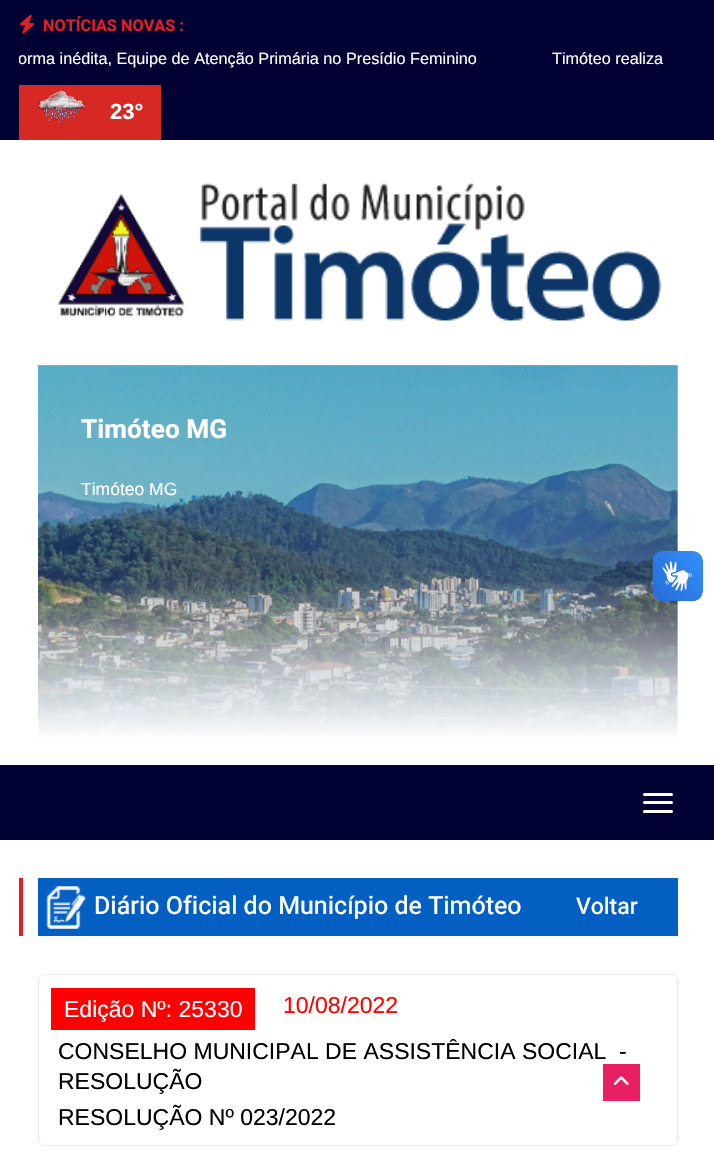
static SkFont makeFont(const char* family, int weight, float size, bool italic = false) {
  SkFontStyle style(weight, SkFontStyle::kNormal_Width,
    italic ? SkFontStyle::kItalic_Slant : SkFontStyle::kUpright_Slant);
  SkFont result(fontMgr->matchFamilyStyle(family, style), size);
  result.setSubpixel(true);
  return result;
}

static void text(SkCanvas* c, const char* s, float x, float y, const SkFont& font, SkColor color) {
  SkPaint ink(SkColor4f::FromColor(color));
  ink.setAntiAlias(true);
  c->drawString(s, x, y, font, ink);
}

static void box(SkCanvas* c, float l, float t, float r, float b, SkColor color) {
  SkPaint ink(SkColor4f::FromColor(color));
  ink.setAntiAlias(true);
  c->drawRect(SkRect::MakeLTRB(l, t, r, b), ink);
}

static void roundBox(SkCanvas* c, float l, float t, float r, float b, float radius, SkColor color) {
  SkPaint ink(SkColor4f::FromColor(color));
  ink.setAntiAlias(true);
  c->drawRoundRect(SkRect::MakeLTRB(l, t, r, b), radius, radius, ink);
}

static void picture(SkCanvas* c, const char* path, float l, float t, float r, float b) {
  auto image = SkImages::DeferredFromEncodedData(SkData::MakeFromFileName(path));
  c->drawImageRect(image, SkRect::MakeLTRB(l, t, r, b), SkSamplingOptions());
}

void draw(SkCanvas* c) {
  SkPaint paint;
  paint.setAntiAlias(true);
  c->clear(0xffffffff);
  box(c, 38, 365, 678, 739, 0xffcccccc);
  box(c, 0, 0, 714, 140, 0xff000032);
  picture(c, "img_01.png", 20, 14, 34, 34);
  SkFont face1 = makeFont("Heebo", 700, 16.25f);
  text(c, "NOTÍCIAS NOVAS :", 43, 31, face1, 0xffe21e22);
  c->save();
  c->clipRect(SkRect::MakeLTRB(19, 43, 671, 75));
  SkFont face2 = makeFont("Arimo", 400, 16.25f);
  text(c, "orma inédita, Equipe de Atenção Primária no Presídio Feminino", 18, 64, face2, 0xffffffff);
  c->restore();
  text(c, "Timóteo realiza", 552, 64, face2, 0xffffffff);
  box(c, 19, 85, 161, 140, 0xffd72924);
  picture(c, "img_02.png", 37, 90, 87, 124);
  SkFont face3 = makeFont("Arimo", 700, 22);
  text(c, "23°", 110, 119, face3, 0xffffffff);
  picture(c, "img_03.png", 57, 193, 185, 317);
  picture(c, "img_04.png", 199, 183, 662, 321);
  picture(c, "img_05.png", 38, 365, 678, 739);
  SkFont face4 = makeFont("Heebo", 700, 26.25f);
  text(c, "Timóteo MG", 81, 438, face4, 0xffffffff);
  SkFont face5 = makeFont("Arimo", 400, 17.5f);
  text(c, "Timóteo MG", 81, 495, face5, 0xffffffff);
  {
    const SkColor colors[] = {0xffffffff, 0x00ffffff};
    const float stops[] = {0, 1};
    const SkPoint ends[] = {{358, 740}, {358, 578}};
    paint.setShader(SkGradientShader::MakeLinear(ends, colors, stops, 2, SkTileMode::kClamp));
    paint.setAlpha(255);
  }
  c->drawRect(SkRect::MakeLTRB(38, 581, 678, 739), paint);
  box(c, 0, 765, 714, 840, 0xff000032);
  roundBox(c, 643, 810, 673, 813, 1.5f, 0xffffffff);
  roundBox(c, 643, 801, 673, 804, 1.5f, 0xffffffff);
  roundBox(c, 643, 793, 673, 796, 1.5f, 0xffffffff);
  box(c, 19, 878, 23, 936, 0xffe21e22);
  box(c, 38, 878, 678, 936, 0xff035fc2);
  picture(c, "img_06.png", 46, 886, 87, 929);
  SkFont face6 = makeFont("Heebo", 500, 25);
  text(c, "Diário Oficial do Município de Timóteo", 94, 914, face6, 0xffffffff);
  SkFont face7 = makeFont("Heebo", 500, 23);
  text(c, "Voltar", 576, 914, face7, 0xffffffff);
  paint.setStyle(SkPaint::kStroke_Style);
  paint.setStrokeWidth(1);
  paint.setShader(nullptr);
  paint.setColor(0xffebebe9);
  c->drawRoundRect(SkRect::MakeLTRB(38.5f, 974.5f, 677.5f, 1145.5f), 5.5f, 5.5f, paint);
  box(c, 51, 988, 255, 1030, 0xffff0000);
  SkFont face8 = makeFont("Arimo", 400, 23);
  text(c, "Edição Nº: 25330", 64, 1017, face8, 0xffffffff);
  text(c, "10/08/2022", 283, 1013, face8, 0xffff0000);
  text(c, "CONSELHO MUNICIPAL DE ASSISTÊNCIA SOCIAL", 58, 1059, face8, 0xff000000);
  text(c, "-", 619, 1059, face8, 0xff000000);
  text(c, "RESOLUÇÃO", 58, 1089, face8, 0xff000000);
  text(c, "RESOLUÇÃO Nº 023/2022", 58, 1125, face8, 0xff000000);
  box(c, 603, 1064, 640, 1101, 0xffe91e63);
  picture(c, "img_07.png", 613, 1076, 629, 1085);
  picture(c, "img_08.png", 652, 551, 703, 602);
  picture(c, "img_09.png", 653, 551, 703, 601);
}
